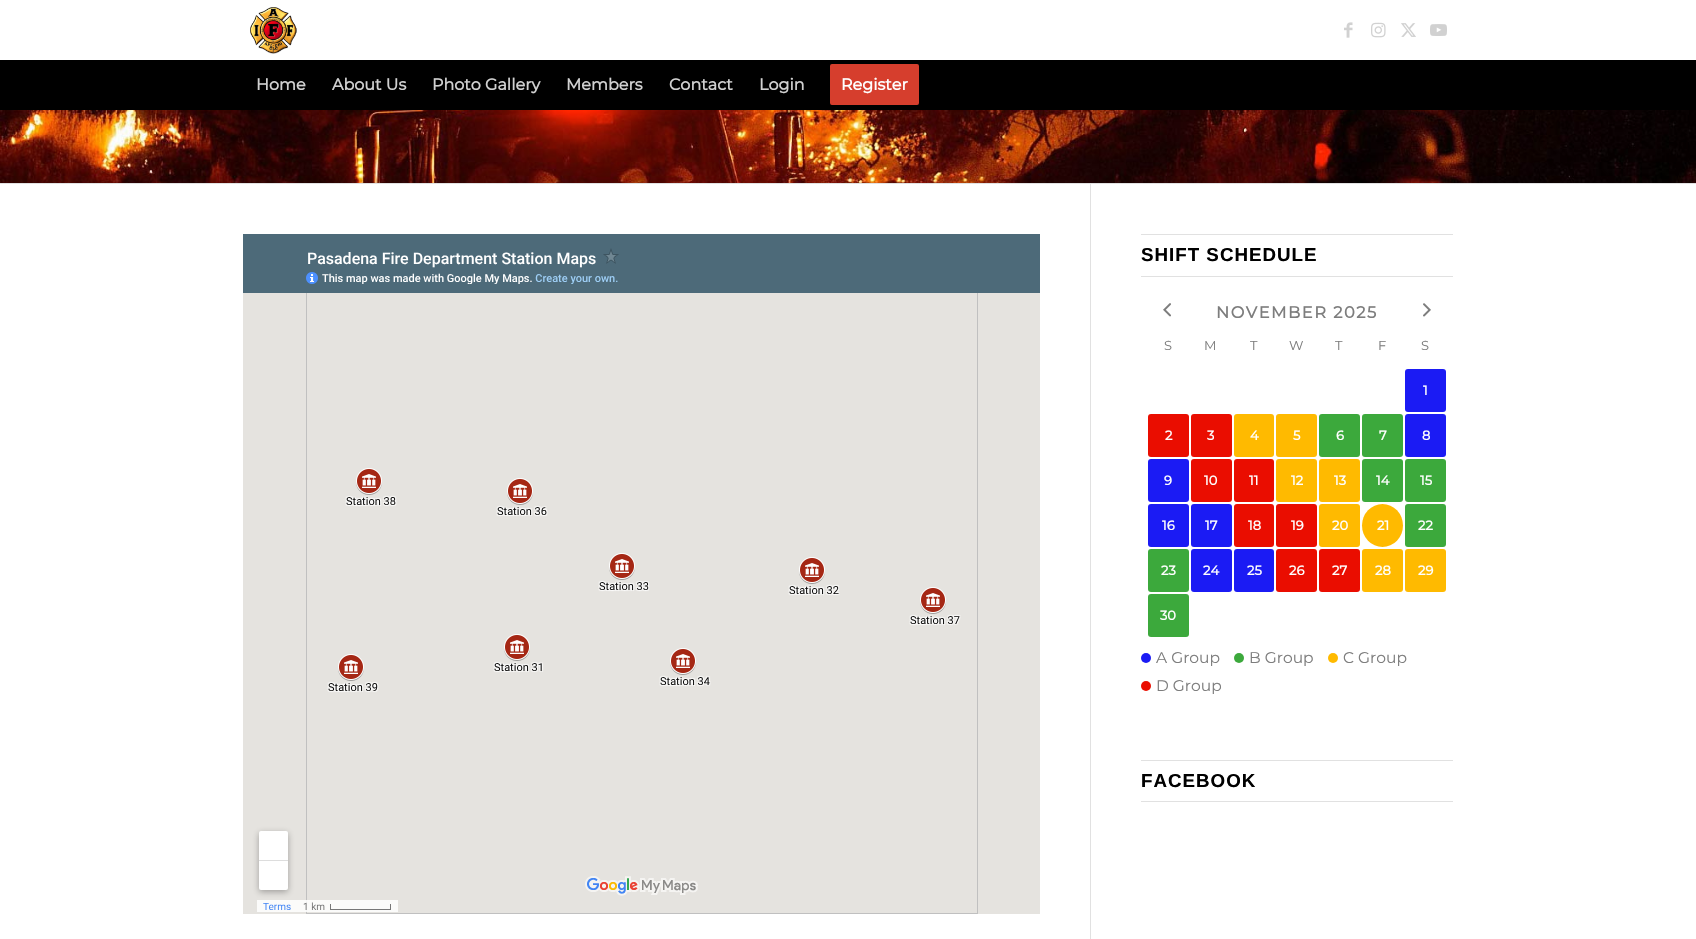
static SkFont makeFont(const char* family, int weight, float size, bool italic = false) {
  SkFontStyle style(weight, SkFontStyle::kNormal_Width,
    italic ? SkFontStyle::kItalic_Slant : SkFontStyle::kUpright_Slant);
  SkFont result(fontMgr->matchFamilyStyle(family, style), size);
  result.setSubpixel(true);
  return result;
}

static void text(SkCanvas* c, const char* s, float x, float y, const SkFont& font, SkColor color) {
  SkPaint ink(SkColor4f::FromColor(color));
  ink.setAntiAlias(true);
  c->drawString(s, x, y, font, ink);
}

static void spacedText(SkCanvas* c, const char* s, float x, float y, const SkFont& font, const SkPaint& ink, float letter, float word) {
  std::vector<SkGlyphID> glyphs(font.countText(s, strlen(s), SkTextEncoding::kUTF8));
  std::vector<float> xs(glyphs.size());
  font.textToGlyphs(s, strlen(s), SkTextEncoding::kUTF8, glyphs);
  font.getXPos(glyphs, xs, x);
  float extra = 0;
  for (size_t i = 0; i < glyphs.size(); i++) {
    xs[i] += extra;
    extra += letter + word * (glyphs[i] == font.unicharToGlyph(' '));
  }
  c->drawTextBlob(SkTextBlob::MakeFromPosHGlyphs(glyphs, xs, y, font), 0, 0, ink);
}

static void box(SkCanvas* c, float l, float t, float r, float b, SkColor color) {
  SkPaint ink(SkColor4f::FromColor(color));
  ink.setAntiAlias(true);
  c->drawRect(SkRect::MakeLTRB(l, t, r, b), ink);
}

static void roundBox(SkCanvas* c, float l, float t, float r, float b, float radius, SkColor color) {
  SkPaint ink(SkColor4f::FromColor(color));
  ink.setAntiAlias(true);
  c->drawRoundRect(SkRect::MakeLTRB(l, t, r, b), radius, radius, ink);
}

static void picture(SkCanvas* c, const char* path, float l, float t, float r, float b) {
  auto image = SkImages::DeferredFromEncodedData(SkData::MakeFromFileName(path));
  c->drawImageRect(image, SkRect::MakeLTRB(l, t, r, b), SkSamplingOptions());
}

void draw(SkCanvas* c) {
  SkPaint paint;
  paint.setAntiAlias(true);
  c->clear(0xffffffff);
  picture(c, "img_01.png", 250, 7, 297, 54);
  picture(c, "img_02.png", 1344, 22, 1353, 38);
  picture(c, "img_03.png", 1371, 22, 1386, 38);
  picture(c, "img_04.png", 1401, 23, 1416, 37);
  picture(c, "img_05.png", 1430, 24, 1447, 36);
  box(c, 0, 60, 1696, 110, 0xff000000);
  SkFont face1 = makeFont("Montserrat", 700, 16);
  text(c, "Home", 256, 90, face1, 0xffd1d1d1);
  text(c, "About Us", 332, 90, face1, 0xffd1d1d1);
  text(c, "Photo Gallery", 432, 90, face1, 0xffd1d1d1);
  text(c, "Members", 566, 90, face1, 0xffd1d1d1);
  text(c, "Contact", 669, 90, face1, 0xffd1d1d1);
  text(c, "Login", 759, 90, face1, 0xffd1d1d1);
  paint.setColor(0xffd63e2d);
  c->drawRoundRect(SkRect::MakeLTRB(831, 65, 918, 104), 1, 1, paint);
  paint.setStyle(SkPaint::kStroke_Style);
  paint.setStrokeWidth(2);
  c->drawRoundRect(SkRect::MakeLTRB(831, 65, 918, 104), 1, 1, paint);
  text(c, "Register", 841, 90, face1, 0xffffffff);
  picture(c, "img_06.png", 0, 110, 1696, 183);
  box(c, 0, 183, 1696, 184, 0xffe1e1e1);
  box(c, 1090, 184, 1091, 939, 0xffe1e1e1);
  picture(c, "img_07.png", 243, 234, 1040, 914);
  box(c, 1141, 234, 1453, 235, 0xffe1e1e1);
  box(c, 1141, 276, 1453, 277, 0xffe1e1e1);
  SkFont face2 = makeFont("Liberation Sans", 700, 18.75f);
  paint.setStyle(SkPaint::kFill_Style);
  paint.setColor(0xff000000);
  spacedText(c, "SHIFT SCHEDULE", 1141, 261, face2, paint, 1, 0);
  picture(c, "img_08.png", 1163, 303, 1171, 317);
  SkFont face3 = makeFont("Montserrat", 700, 16.25f);
  paint.setColor(0xff7d7d7d);
  spacedText(c, "NOVEMBER 2025", 1216, 318, face3, paint, 1.5f, 0);
  picture(c, "img_09.png", 1423, 303, 1431, 317);
  SkFont face4 = makeFont("Montserrat", 100, 13);
  spacedText(c, "S", 1164, 350, face4, paint, 1.5f, 0);
  spacedText(c, "M", 1204, 350, face4, paint, 1.5f, 0);
  spacedText(c, "T", 1250, 350, face4, paint, 1.5f, 0);
  spacedText(c, "W", 1289, 350, face4, paint, 1.5f, 0);
  spacedText(c, "T", 1335, 350, face4, paint, 1.5f, 0);
  spacedText(c, "F", 1378, 350, face4, paint, 1.5f, 0);
  spacedText(c, "S", 1421, 350, face4, paint, 1.5f, 0);
  roundBox(c, 1405, 369, 1446, 412, 3, 0xff1b1bf4);
  SkFont face5 = makeFont("Montserrat", 700, 13);
  text(c, "1", 1423, 395, face5, 0xffffffff);
  roundBox(c, 1148, 414, 1189, 457, 3, 0xffea0d00);
  text(c, "2", 1165, 440, face5, 0xffffffff);
  roundBox(c, 1191, 414, 1232, 457, 3, 0xffea0d00);
  text(c, "3", 1207, 440, face5, 0xffffffff);
  roundBox(c, 1234, 414, 1274, 457, 3, 0xffffba00);
  text(c, "4", 1250, 440, face5, 0xffffffff);
  roundBox(c, 1276, 414, 1317, 457, 3, 0xffffba00);
  text(c, "5", 1293, 440, face5, 0xffffffff);
  roundBox(c, 1319, 414, 1360, 457, 3, 0xff3ca93c);
  text(c, "6", 1336, 440, face5, 0xffffffff);
  roundBox(c, 1362, 414, 1403, 457, 3, 0xff3ca93c);
  text(c, "7", 1379, 440, face5, 0xffffffff);
  roundBox(c, 1405, 414, 1446, 457, 3, 0xff1b1bf4);
  text(c, "8", 1422, 440, face5, 0xffffffff);
  roundBox(c, 1148, 459, 1189, 502, 3, 0xff1b1bf4);
  text(c, "9", 1164, 485, face5, 0xffffffff);
  roundBox(c, 1191, 459, 1232, 502, 3, 0xffea0d00);
  text(c, "10", 1204, 485, face5, 0xffffffff);
  roundBox(c, 1234, 459, 1274, 502, 3, 0xffea0d00);
  text(c, "11", 1249, 485, face5, 0xffffffff);
  roundBox(c, 1276, 459, 1317, 502, 3, 0xffffba00);
  text(c, "12", 1291, 485, face5, 0xffffffff);
  roundBox(c, 1319, 459, 1360, 502, 3, 0xffffba00);
  text(c, "13", 1334, 485, face5, 0xffffffff);
  roundBox(c, 1362, 459, 1403, 502, 3, 0xff3ca93c);
  text(c, "14", 1376, 485, face5, 0xffffffff);
  roundBox(c, 1405, 459, 1446, 502, 3, 0xff3ca93c);
  text(c, "15", 1420, 485, face5, 0xffffffff);
  roundBox(c, 1148, 504, 1189, 547, 3, 0xff1b1bf4);
  text(c, "16", 1162, 530, face5, 0xffffffff);
  roundBox(c, 1191, 504, 1232, 547, 3, 0xff1b1bf4);
  text(c, "17", 1205, 530, face5, 0xffffffff);
  roundBox(c, 1234, 504, 1274, 547, 3, 0xffea0d00);
  text(c, "18", 1248, 530, face5, 0xffffffff);
  roundBox(c, 1276, 504, 1317, 547, 3, 0xffea0d00);
  text(c, "19", 1291, 530, face5, 0xffffffff);
  roundBox(c, 1319, 504, 1360, 547, 3, 0xffffba00);
  text(c, "20", 1332, 530, face5, 0xffffffff);
  paint.setColor(0xffffba00);
  c->drawOval(SkRect::MakeLTRB(1362, 504, 1403, 547), paint);
  text(c, "21", 1377, 530, face5, 0xffffffff);
  roundBox(c, 1405, 504, 1446, 547, 3, 0xff3ca93c);
  text(c, "22", 1418, 530, face5, 0xffffffff);
  roundBox(c, 1148, 549, 1189, 592, 3, 0xff3ca93c);
  text(c, "23", 1161, 575, face5, 0xffffffff);
  roundBox(c, 1191, 549, 1232, 592, 3, 0xff1b1bf4);
  text(c, "24", 1203, 575, face5, 0xffffffff);
  roundBox(c, 1234, 549, 1274, 592, 3, 0xff1b1bf4);
  text(c, "25", 1247, 575, face5, 0xffffffff);
  roundBox(c, 1276, 549, 1317, 592, 3, 0xffea0d00);
  text(c, "26", 1289, 575, face5, 0xffffffff);
  roundBox(c, 1319, 549, 1360, 592, 3, 0xffea0d00);
  text(c, "27", 1332, 575, face5, 0xffffffff);
  roundBox(c, 1362, 549, 1403, 592, 3, 0xffffba00);
  text(c, "28", 1375, 575, face5, 0xffffffff);
  roundBox(c, 1405, 549, 1446, 592, 3, 0xffffba00);
  text(c, "29", 1418, 575, face5, 0xffffffff);
  roundBox(c, 1148, 594, 1189, 637, 3, 0xff3ca93c);
  text(c, "30", 1160, 620, face5, 0xffffffff);
  paint.setColor(0xff1b1bf4);
  c->drawCircle(1146, 658, 5, paint);
  SkFont face6 = makeFont("Montserrat", 100, 15.5f);
  text(c, "A Group", 1156, 663, face6, 0xff7d7d7d);
  paint.setColor(0xff3ca93c);
  c->drawCircle(1239, 658, 5, paint);
  text(c, "B Group", 1249, 663, face6, 0xff7d7d7d);
  paint.setColor(0xffffba00);
  c->drawCircle(1333, 658, 5, paint);
  text(c, "C Group", 1343, 663, face6, 0xff7d7d7d);
  paint.setColor(0xffea0d00);
  c->drawCircle(1146, 686, 5, paint);
  text(c, "D Group", 1156, 691, face6, 0xff7d7d7d);
  box(c, 1141, 760, 1453, 761, 0xffe1e1e1);
  box(c, 1141, 801, 1453, 802, 0xffe1e1e1);
  paint.setColor(0xff000000);
  spacedText(c, "FACEBOOK", 1141, 787, face2, paint, 1, 0);
}
